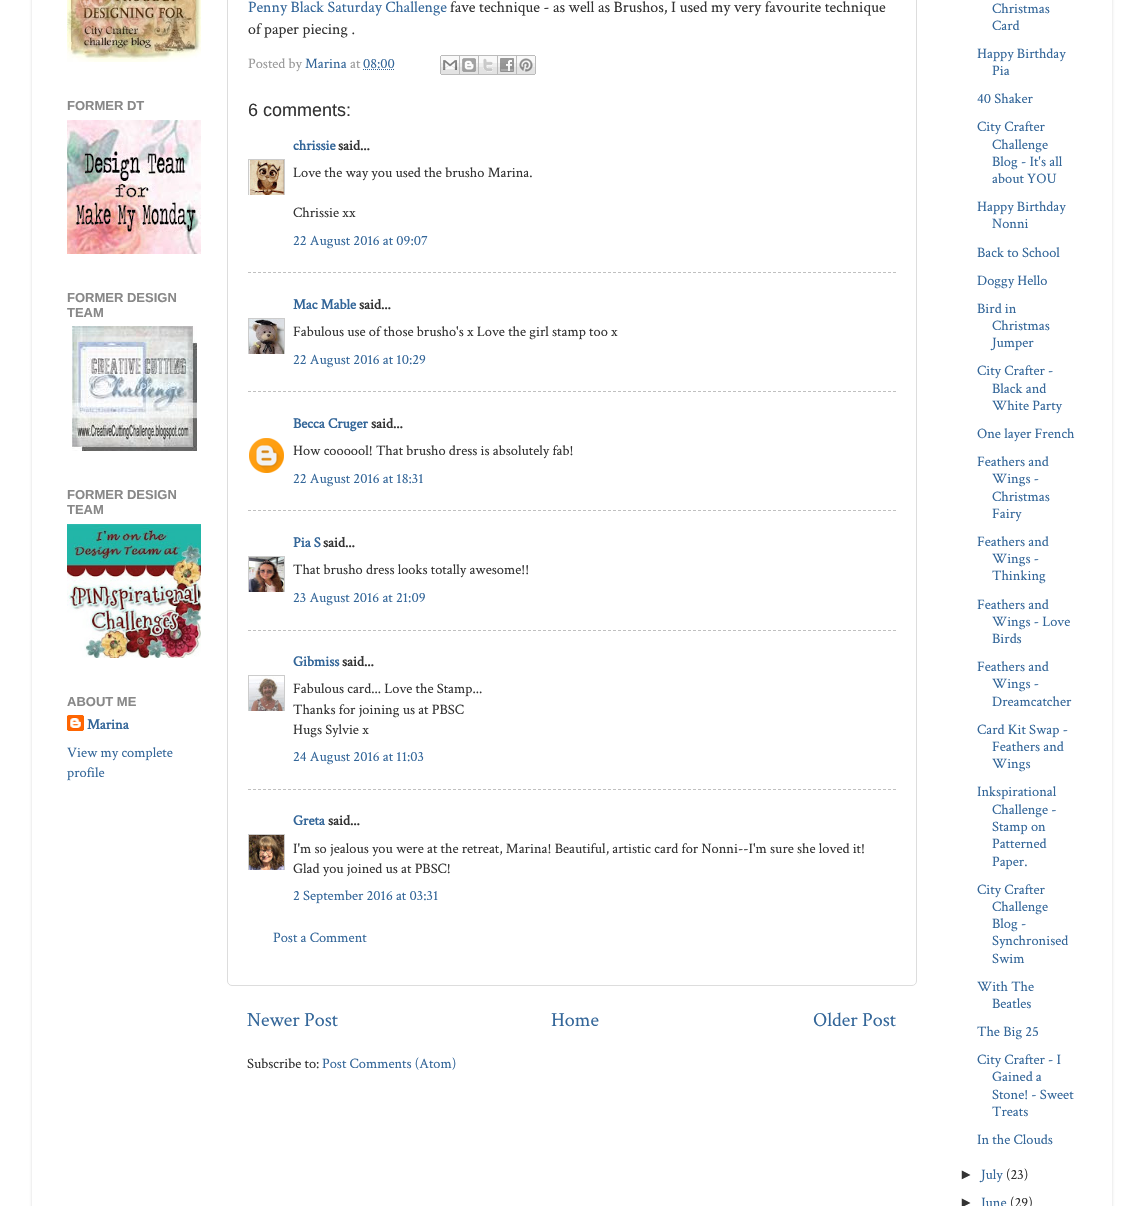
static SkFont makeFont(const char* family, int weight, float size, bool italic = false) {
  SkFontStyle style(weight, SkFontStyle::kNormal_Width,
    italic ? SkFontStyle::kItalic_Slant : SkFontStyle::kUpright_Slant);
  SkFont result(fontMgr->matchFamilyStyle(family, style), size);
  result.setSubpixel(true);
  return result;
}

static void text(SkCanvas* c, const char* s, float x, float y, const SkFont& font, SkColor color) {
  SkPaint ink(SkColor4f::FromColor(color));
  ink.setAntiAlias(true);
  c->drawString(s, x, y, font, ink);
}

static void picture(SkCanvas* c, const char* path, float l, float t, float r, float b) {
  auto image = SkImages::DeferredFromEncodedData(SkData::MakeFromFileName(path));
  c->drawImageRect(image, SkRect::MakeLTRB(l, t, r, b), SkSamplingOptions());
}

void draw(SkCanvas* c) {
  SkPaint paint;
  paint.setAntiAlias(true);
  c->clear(0xffffffff);
  c->save();
  c->clipPath(SkPathBuilder(SkPathFillType::kEvenOdd).moveTo(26, 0).lineTo(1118, 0).lineTo(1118, 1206).lineTo(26, 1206).close().moveTo(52, -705).lineTo(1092, -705).cubicTo(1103, -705, 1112, -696, 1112, -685).lineTo(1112, 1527).lineTo(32, 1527).lineTo(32, -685).cubicTo(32, -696, 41, -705, 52, -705).close().detach(), true);
  paint.setColor(0x26000000);
  paint.setMaskFilter(SkMaskFilter::MakeBlur(kNormal_SkBlurStyle, 1.5f));
  c->drawRoundRect(SkRect::MakeLTRB(32, -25, 1112, 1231), 20, 20, paint);
  paint.setMaskFilter(nullptr);
  c->restore();
  picture(c, "img_01.png", 67, 0, 201, 62);
  SkFont face1 = makeFont("Liberation Sans", 700, 13);
  text(c, "FORMER DT", 67, 110, face1, 0xff888888);
  picture(c, "img_02.png", 67, 120, 201, 254);
  text(c, "FORMER DESIGN", 67, 302, face1, 0xff888888);
  text(c, "TEAM", 67, 317, face1, 0xff888888);
  picture(c, "img_03.png", 72, 326, 197, 451);
  text(c, "FORMER DESIGN", 67, 499, face1, 0xff888888);
  text(c, "TEAM", 67, 514, face1, 0xff888888);
  picture(c, "img_04.png", 67, 524, 201, 658);
  text(c, "ABOUT ME", 67, 706, face1, 0xff888888);
  picture(c, "img_05.png", 67, 715, 84, 731);
  SkFont face2 = makeFont("Crimson Text", 700, 14.4f);
  text(c, "Marina", 87, 729, face2, 0xff336699);
  SkFont face3 = makeFont("Crimson Text", 400, 14.4f);
  text(c, "View my complete", 67, 757, face3, 0xff336699);
  text(c, "profile", 67, 777, face3, 0xff336699);
  paint.setStyle(SkPaint::kStroke_Style);
  paint.setStrokeWidth(1);
  paint.setColor(0xffdddddd);
  c->drawRoundRect(SkRect::MakeLTRB(227.5f, -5.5f, 916.5f, 985.5f), 4.5f, 4.5f, paint);
  SkFont face4 = makeFont("Crimson Text", 400, 15.85f);
  text(c, "Penny Black Saturday Challenge", 248, 12, face4, 0xff336699);
  text(c, "fave technique - as well as Brushos, I used my very favourite technique", 450, 12, face4, 0xff333333);
  text(c, "of paper piecing .", 248, 34, face4, 0xff333333);
  text(c, "Posted by", 248, 68, face3, 0xff999999);
  text(c, "Marina", 305, 68, face3, 0xff336699);
  text(c, "at", 350, 68, face3, 0xff999999);
  text(c, "08:00", 363, 68, face3, 0xff336699);
  paint.setColor(0xff336699);
  paint.setPathEffect(SkDashPathEffect::Make({{1, 1}}, 0));
  c->drawPath(SkPathBuilder().moveTo(363, 69.5f).lineTo(395, 69.5f).detach(), paint);
  paint.setPathEffect(nullptr);
  picture(c, "img_06.png", 440, 55, 460, 75);
  picture(c, "img_07.png", 460, 55, 479, 75);
  picture(c, "img_08.png", 479, 55, 498, 75);
  picture(c, "img_09.png", 498, 55, 517, 75);
  picture(c, "img_10.png", 517, 55, 536, 75);
  SkFont face5 = makeFont("Liberation Sans", 400, 18);
  text(c, "6 comments:", 248, 116, face5, 0xff333333);
  text(c, "chrissie", 293, 150, face2, 0xff336699);
  text(c, "said...", 338, 150, face2, 0xff333333);
  c->save();
  c->clipRect(SkRect::MakeLTRB(248, 159, 285, 195));
  paint.setColor(0xffcccccc);
  c->drawRect(SkRect::MakeLTRB(248.5f, 159.5f, 284.5f, 195.5f), paint);
  c->restore();
  picture(c, "img_11.png", 249, 160, 284, 195);
  text(c, "Love the way you used the brusho Marina.", 293, 177, face3, 0xff333333);
  text(c, "Chrissie xx", 293, 217, face3, 0xff333333);
  text(c, "22 August 2016 at 09:07", 293, 245, face3, 0xff336699);
  paint.setColor(0xffc0c0c0);
  paint.setPathEffect(SkDashPathEffect::Make({{3, 2}}, 0));
  c->drawPath(SkPathBuilder().moveTo(248, 272.5f).lineTo(896, 272.5f).detach(), paint);
  paint.setPathEffect(nullptr);
  text(c, "Mac Mable", 293, 309, face2, 0xff336699);
  text(c, "said...", 359, 309, face2, 0xff333333);
  c->save();
  c->clipRect(SkRect::MakeLTRB(248, 318, 285, 354));
  paint.setColor(0xffcccccc);
  c->drawRect(SkRect::MakeLTRB(248.5f, 318.5f, 284.5f, 354.5f), paint);
  c->restore();
  picture(c, "img_12.png", 249, 319, 284, 354);
  text(c, "Fabulous use of those brusho's x Love the girl stamp too x", 293, 336, face3, 0xff333333);
  text(c, "22 August 2016 at 10:29", 293, 364, face3, 0xff336699);
  paint.setColor(0xffc0c0c0);
  paint.setPathEffect(SkDashPathEffect::Make({{3, 2}}, 0));
  c->drawPath(SkPathBuilder().moveTo(248, 391.5f).lineTo(896, 391.5f).detach(), paint);
  paint.setPathEffect(nullptr);
  text(c, "Becca Cruger", 293, 428, face2, 0xff336699);
  text(c, "said...", 371, 428, face2, 0xff333333);
  picture(c, "img_13.png", 249, 438, 284, 473);
  text(c, "How coooool! That brusho dress is absolutely fab!", 293, 455, face3, 0xff333333);
  text(c, "22 August 2016 at 18:31", 293, 483, face3, 0xff336699);
  paint.setPathEffect(SkDashPathEffect::Make({{3, 2}}, 0));
  c->drawPath(SkPathBuilder().moveTo(248, 510.5f).lineTo(896, 510.5f).detach(), paint);
  paint.setPathEffect(nullptr);
  text(c, "Pia S", 293, 547, face2, 0xff336699);
  text(c, "said...", 323, 547, face2, 0xff333333);
  c->save();
  c->clipRect(SkRect::MakeLTRB(248, 556, 285, 592));
  paint.setColor(0xffcccccc);
  c->drawRect(SkRect::MakeLTRB(248.5f, 556.5f, 284.5f, 592.5f), paint);
  c->restore();
  picture(c, "img_14.png", 249, 557, 284, 592);
  text(c, "That brusho dress looks totally awesome!!", 293, 574, face3, 0xff333333);
  text(c, "23 August 2016 at 21:09", 293, 602, face3, 0xff336699);
  paint.setColor(0xffc0c0c0);
  paint.setPathEffect(SkDashPathEffect::Make({{3, 2}}, 0));
  c->drawPath(SkPathBuilder().moveTo(248, 630.5f).lineTo(896, 630.5f).detach(), paint);
  paint.setPathEffect(nullptr);
  text(c, "Gibmiss", 293, 666, face2, 0xff336699);
  text(c, "said...", 342, 666, face2, 0xff333333);
  c->save();
  c->clipRect(SkRect::MakeLTRB(248, 675, 285, 711));
  paint.setColor(0xffcccccc);
  c->drawRect(SkRect::MakeLTRB(248.5f, 675.5f, 284.5f, 711.5f), paint);
  c->restore();
  picture(c, "img_15.png", 249, 676, 284, 711);
  text(c, "Fabulous card... Love the Stamp...", 293, 693, face3, 0xff333333);
  text(c, "Thanks for joining us at PBSC", 293, 714, face3, 0xff333333);
  text(c, "Hugs Sylvie x", 293, 734, face3, 0xff333333);
  text(c, "24 August 2016 at 11:03", 293, 761, face3, 0xff336699);
  paint.setColor(0xffc0c0c0);
  paint.setPathEffect(SkDashPathEffect::Make({{3, 2}}, 0));
  c->drawPath(SkPathBuilder().moveTo(248, 789.5f).lineTo(896, 789.5f).detach(), paint);
  paint.setPathEffect(nullptr);
  text(c, "Greta", 293, 825, face2, 0xff336699);
  text(c, "said...", 328, 825, face2, 0xff333333);
  c->save();
  c->clipRect(SkRect::MakeLTRB(248, 834, 285, 870));
  paint.setColor(0xffcccccc);
  c->drawRect(SkRect::MakeLTRB(248.5f, 834.5f, 284.5f, 870.5f), paint);
  c->restore();
  picture(c, "img_16.png", 249, 835, 284, 870);
  text(c, "I'm so jealous you were at the retreat, Marina! Beautiful, artistic card for Nonni--I'm sure she loved it!", 293, 853, face3, 0xff333333);
  text(c, "Glad you joined us at PBSC!", 293, 873, face3, 0xff333333);
  text(c, "2 September 2016 at 03:31", 293, 900, face3, 0xff336699);
  text(c, "Post a Comment", 273, 942, face3, 0xff336699);
  SkFont face6 = makeFont("Crimson Text", 400, 20);
  text(c, "Newer Post", 247, 1026, face6, 0xff336699);
  text(c, "Home", 551, 1026, face6, 0xff336699);
  text(c, "Older Post", 813, 1026, face6, 0xff336699);
  text(c, "Subscribe to:", 247, 1068, face3, 0xff333333);
  text(c, "Post Comments (Atom)", 322, 1068, face3, 0xff336699);
  text(c, "Christmas", 992, 13, face3, 0xff336699);
  text(c, "Card", 992, 30, face3, 0xff336699);
  text(c, "Happy Birthday", 977, 58, face3, 0xff336699);
  text(c, "Pia", 992, 75, face3, 0xff336699);
  text(c, "40 Shaker", 977, 103, face3, 0xff336699);
  text(c, "City Crafter", 977, 131, face3, 0xff336699);
  text(c, "Challenge", 992, 149, face3, 0xff336699);
  text(c, "Blog - It's all", 992, 166, face3, 0xff336699);
  text(c, "about YOU", 992, 183, face3, 0xff336699);
  text(c, "Happy Birthday", 977, 211, face3, 0xff336699);
  text(c, "Nonni", 992, 228, face3, 0xff336699);
  text(c, "Back to School", 977, 257, face3, 0xff336699);
  text(c, "Doggy Hello", 977, 285, face3, 0xff336699);
  text(c, "Bird in", 977, 313, face3, 0xff336699);
  text(c, "Christmas", 992, 330, face3, 0xff336699);
  text(c, "Jumper", 992, 347, face3, 0xff336699);
  text(c, "City Crafter -", 977, 375, face3, 0xff336699);
  text(c, "Black and", 992, 393, face3, 0xff336699);
  text(c, "White Party", 992, 410, face3, 0xff336699);
  text(c, "One layer French", 977, 438, face3, 0xff336699);
  text(c, "Feathers and", 977, 466, face3, 0xff336699);
  text(c, "Wings -", 992, 483, face3, 0xff336699);
  text(c, "Christmas", 992, 501, face3, 0xff336699);
  text(c, "Fairy", 992, 518, face3, 0xff336699);
  text(c, "Feathers and", 977, 546, face3, 0xff336699);
  text(c, "Wings -", 992, 563, face3, 0xff336699);
  text(c, "Thinking", 992, 580, face3, 0xff336699);
  text(c, "Feathers and", 977, 609, face3, 0xff336699);
  text(c, "Wings - Love", 992, 626, face3, 0xff336699);
  text(c, "Birds", 992, 643, face3, 0xff336699);
  text(c, "Feathers and", 977, 671, face3, 0xff336699);
  text(c, "Wings -", 992, 688, face3, 0xff336699);
  text(c, "Dreamcatcher", 992, 706, face3, 0xff336699);
  text(c, "Card Kit Swap -", 977, 734, face3, 0xff336699);
  text(c, "Feathers and", 992, 751, face3, 0xff336699);
  text(c, "Wings", 992, 768, face3, 0xff336699);
  text(c, "Inkspirational", 977, 796, face3, 0xff336699);
  text(c, "Challenge -", 992, 814, face3, 0xff336699);
  text(c, "Stamp on", 992, 831, face3, 0xff336699);
  text(c, "Patterned", 992, 848, face3, 0xff336699);
  text(c, "Paper.", 992, 866, face3, 0xff336699);
  text(c, "City Crafter", 977, 894, face3, 0xff336699);
  text(c, "Challenge", 992, 911, face3, 0xff336699);
  text(c, "Blog -", 992, 928, face3, 0xff336699);
  text(c, "Synchronised", 992, 945, face3, 0xff336699);
  text(c, "Swim", 992, 963, face3, 0xff336699);
  text(c, "With The", 977, 991, face3, 0xff336699);
  text(c, "Beatles", 992, 1008, face3, 0xff336699);
  text(c, "The Big 25", 977, 1036, face3, 0xff336699);
  text(c, "City Crafter - I", 977, 1064, face3, 0xff336699);
  text(c, "Gained a", 992, 1081, face3, 0xff336699);
  text(c, "Stone! - Sweet", 992, 1099, face3, 0xff336699);
  text(c, "Treats", 992, 1116, face3, 0xff336699);
  text(c, "In the Clouds", 977, 1144, face3, 0xff336699);
  SkFont face7 = makeFont("Liberation Sans", 400, 14.4f);
  text(c, "►", 959, 1179, face7, 0xff333333);
  text(c, "July", 981, 1179, face3, 0xff336699);
  text(c, "(23)", 1006, 1179, face3, 0xff333333);
  text(c, "►", 959, 1207, face7, 0xff333333);
  text(c, "June", 981, 1207, face3, 0xff336699);
  text(c, "(29)", 1010, 1207, face3, 0xff333333);
}
